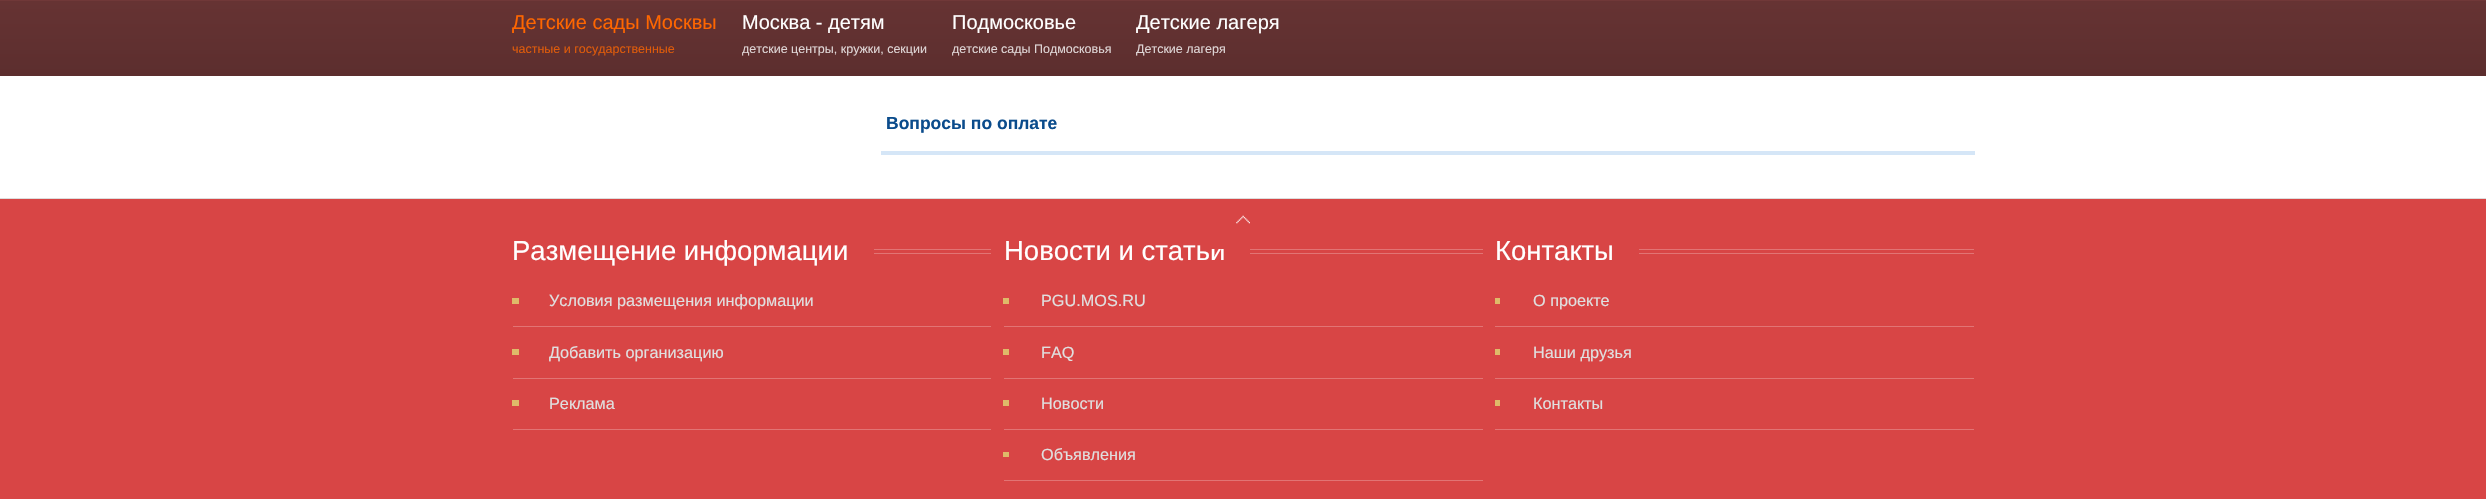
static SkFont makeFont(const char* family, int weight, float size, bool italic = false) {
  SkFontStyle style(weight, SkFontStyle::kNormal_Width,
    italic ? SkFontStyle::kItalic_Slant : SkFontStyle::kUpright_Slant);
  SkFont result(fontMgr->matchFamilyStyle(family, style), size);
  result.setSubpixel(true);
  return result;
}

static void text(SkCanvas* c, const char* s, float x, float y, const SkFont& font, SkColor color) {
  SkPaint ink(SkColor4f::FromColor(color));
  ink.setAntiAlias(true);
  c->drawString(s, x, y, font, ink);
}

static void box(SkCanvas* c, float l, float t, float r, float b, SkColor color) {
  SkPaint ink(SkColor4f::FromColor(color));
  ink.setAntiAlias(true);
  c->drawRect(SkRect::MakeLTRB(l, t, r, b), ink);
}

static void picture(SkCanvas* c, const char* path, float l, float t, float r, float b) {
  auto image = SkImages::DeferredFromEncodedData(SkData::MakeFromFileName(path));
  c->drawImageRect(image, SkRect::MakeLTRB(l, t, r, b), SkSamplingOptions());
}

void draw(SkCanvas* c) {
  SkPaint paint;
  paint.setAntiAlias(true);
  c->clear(0xffffffff);
  {
    const SkColor colors[] = {0xff663333, 0xff5c2e2e};
    const float stops[] = {0, 1};
    const SkPoint ends[] = {{1243, 1.2f}, {1243, 76}};
    paint.setShader(SkGradientShader::MakeLinear(ends, colors, stops, 2, SkTileMode::kClamp));
    paint.setAlpha(255);
  }
  c->drawRect(SkRect::MakeLTRB(0, 1, 2486, 76), paint);
  box(c, 0, 0, 2486, 1, 0xff703838);
  SkFont face1 = makeFont("Liberation Sans", 400, 20);
  text(c, "Детские сады Москвы", 512, 29, face1, 0xffff6600);
  SkFont face2 = makeFont("Liberation Sans", 400, 12.5f);
  text(c, "частные и государственные", 512, 53, face2, 0xffdf5b0a);
  text(c, "Москва - детям", 742, 29, face1, 0xffffffff);
  text(c, "детские центры, кружки, секции", 742, 53, face2, 0xffdfd6d6);
  text(c, "Подмосковье", 952, 29, face1, 0xffffffff);
  text(c, "детские сады Подмосковья", 952, 53, face2, 0xffdfd6d6);
  text(c, "Детские лагеря", 1136, 29, face1, 0xffffffff);
  text(c, "Детские лагеря", 1136, 53, face2, 0xffdfd6d6);
  box(c, 881, 151, 1975, 155, 0xffd5e6f7);
  SkFont face3 = makeFont("Liberation Sans", 700, 17.5f);
  text(c, "Вопросы по оплате", 886, 129, face3, 0xff0b4c8c);
  box(c, 0, 199, 2486, 499, 0xffd84545);
  box(c, 0, 198, 2486, 199, 0xffdddddd);
  SkFont face4 = makeFont("Liberation Sans", 400, 27.5f);
  text(c, "Новости и статьи", 1004, 260, face4, 0xffffffff);
  paint.setShader(nullptr);
  paint.setColor(0xffd84545);
  c->drawPath(SkPathBuilder().moveTo(1244, 199).cubicTo(1262, 199, 1276, 210, 1276, 224).lineTo(1276, 249).lineTo(1211, 249).lineTo(1211, 224).cubicTo(1211, 210, 1226, 199, 1244, 199).close().detach(), paint);
  picture(c, "img_01.png", 1236, 215, 1250, 224);
  text(c, "Размещение информации", 512, 260, face4, 0xffffffff);
  box(c, 874, 249, 991, 250, 0xffe27474);
  box(c, 874, 253, 991, 254, 0xffe27474);
  box(c, 512, 298, 519, 304, 0xffdfba69);
  box(c, 513, 326, 991, 327, 0xffe27474);
  SkFont face5 = makeFont("Liberation Sans", 400, 16.25f);
  text(c, "Условия размещения информации", 549, 306, face5, 0xffe0dfdf);
  box(c, 512, 349, 519, 355, 0xffdfba69);
  box(c, 513, 378, 991, 379, 0xffe27474);
  text(c, "Добавить организацию", 549, 358, face5, 0xffe0dfdf);
  box(c, 512, 400, 519, 406, 0xffdfba69);
  box(c, 513, 429, 991, 430, 0xffe27474);
  text(c, "Реклама", 549, 409, face5, 0xffe0dfdf);
  box(c, 1250, 249, 1483, 250, 0xffe27474);
  box(c, 1250, 253, 1483, 254, 0xffe27474);
  box(c, 1003, 298, 1009, 304, 0xffdfba69);
  box(c, 1004, 326, 1483, 327, 0xffe27474);
  text(c, "PGU.MOS.RU", 1041, 306, face5, 0xffe0dfdf);
  box(c, 1003, 349, 1009, 355, 0xffdfba69);
  box(c, 1004, 378, 1483, 379, 0xffe27474);
  text(c, "FAQ", 1041, 358, face5, 0xffe0dfdf);
  box(c, 1003, 400, 1009, 406, 0xffdfba69);
  box(c, 1004, 429, 1483, 430, 0xffe27474);
  text(c, "Новости", 1041, 409, face5, 0xffe0dfdf);
  box(c, 1003, 452, 1009, 457, 0xffdfba69);
  box(c, 1004, 480, 1483, 481, 0xffe27474);
  text(c, "Объявления", 1041, 460, face5, 0xffe0dfdf);
  text(c, "Контакты", 1495, 260, face4, 0xffffffff);
  box(c, 1639, 249, 1974, 250, 0xffe27474);
  box(c, 1639, 253, 1974, 254, 0xffe27474);
  box(c, 1495, 298, 1500, 304, 0xffdfba69);
  box(c, 1495, 326, 1974, 327, 0xffe27474);
  text(c, "О проекте", 1533, 306, face5, 0xffe0dfdf);
  box(c, 1495, 349, 1500, 355, 0xffdfba69);
  box(c, 1495, 378, 1974, 379, 0xffe27474);
  text(c, "Наши друзья", 1533, 358, face5, 0xffe0dfdf);
  box(c, 1495, 400, 1500, 406, 0xffdfba69);
  box(c, 1495, 429, 1974, 430, 0xffe27474);
  text(c, "Контакты", 1533, 409, face5, 0xffe0dfdf);
}
